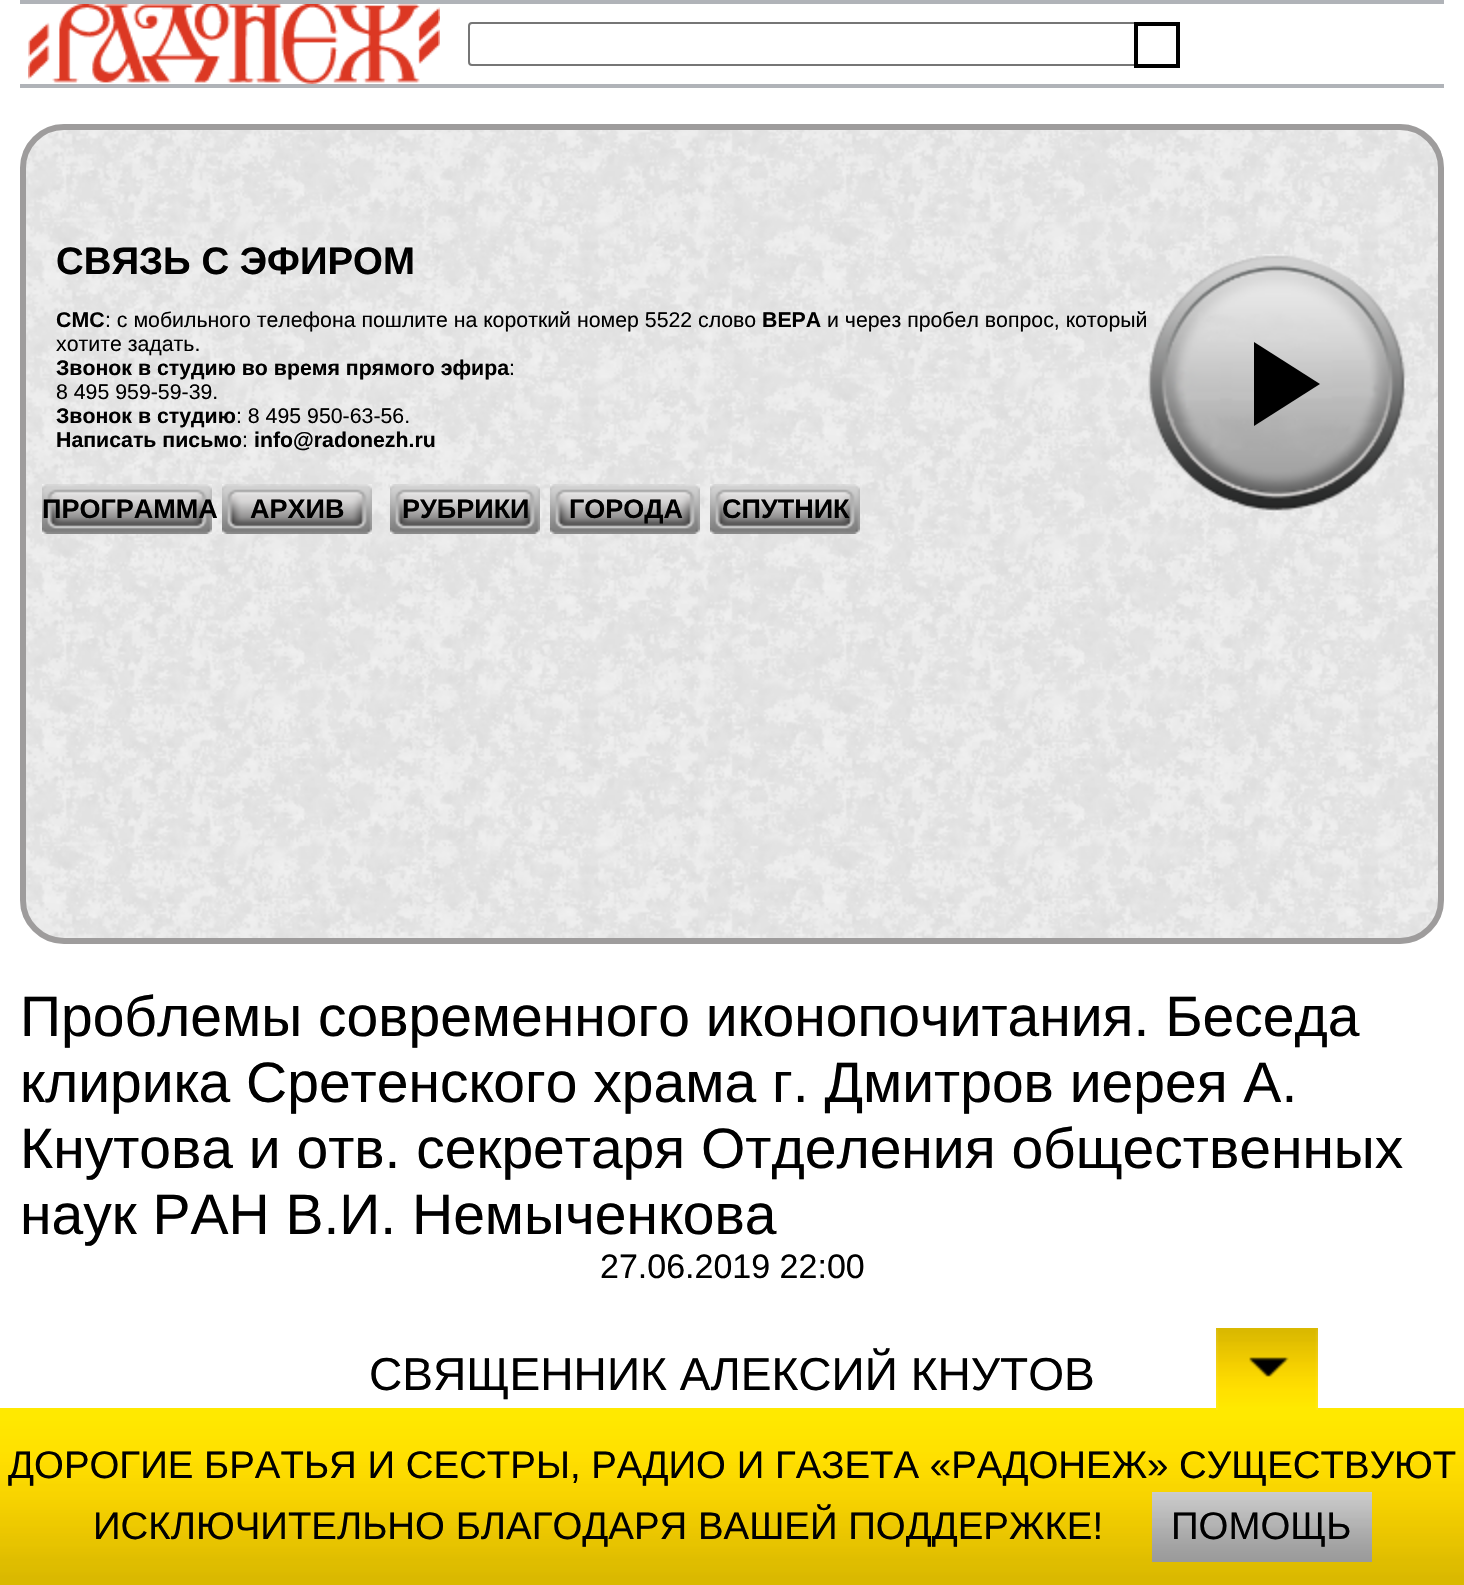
static SkFont makeFont(const char* family, int weight, float size, bool italic = false) {
  SkFontStyle style(weight, SkFontStyle::kNormal_Width,
    italic ? SkFontStyle::kItalic_Slant : SkFontStyle::kUpright_Slant);
  SkFont result(fontMgr->matchFamilyStyle(family, style), size);
  result.setSubpixel(true);
  return result;
}

static void text(SkCanvas* c, const char* s, float x, float y, const SkFont& font, SkColor color) {
  SkPaint ink(SkColor4f::FromColor(color));
  ink.setAntiAlias(true);
  c->drawString(s, x, y, font, ink);
}

static void box(SkCanvas* c, float l, float t, float r, float b, SkColor color) {
  SkPaint ink(SkColor4f::FromColor(color));
  ink.setAntiAlias(true);
  c->drawRect(SkRect::MakeLTRB(l, t, r, b), ink);
}

static void picture(SkCanvas* c, const char* path, float l, float t, float r, float b) {
  auto image = SkImages::DeferredFromEncodedData(SkData::MakeFromFileName(path));
  c->drawImageRect(image, SkRect::MakeLTRB(l, t, r, b), SkSamplingOptions());
}

void draw(SkCanvas* c) {
  SkPaint paint;
  paint.setAntiAlias(true);
  c->clear(0xffffffff);
  box(c, 20, 0, 1444, 4, 0xffb0b3b8);
  box(c, 20, 84, 1444, 88, 0xffb0b3b8);
  picture(c, "img_01.png", 28, 4, 440, 84);
  paint.setStyle(SkPaint::kStroke_Style);
  paint.setStrokeWidth(2);
  paint.setColor(0xff767676);
  c->drawRoundRect(SkRect::MakeLTRB(469, 23, 1179, 65), 3, 3, paint);
  paint.setStrokeWidth(4);
  paint.setColor(0xff000000);
  c->drawRect(SkRect::MakeLTRB(1136, 24, 1178, 66), paint);
  picture(c, "img_02.png", 20, 124, 1444, 944);
  paint.setStrokeWidth(6);
  paint.setColor(0xff9e9c9c);
  c->drawRoundRect(SkRect::MakeLTRB(23, 127, 1441, 941), 41, 41, paint);
  SkFont face1 = makeFont("Liberation Sans", 700, 38.4f);
  text(c, "СВЯЗЬ С ЭФИРОМ", 56, 274, face1, 0xff000000);
  SkFont face2 = makeFont("Liberation Sans", 700, 21.3f);
  text(c, "СМС", 56, 327, face2, 0xff000000);
  SkFont face3 = makeFont("Liberation Sans", 400, 21.3f);
  text(c, ": с мобильного телефона пошлите на короткий номер 5522 слово", 105, 327, face3, 0xff000000);
  text(c, "ВЕРА", 762, 327, face2, 0xff000000);
  text(c, "и через пробел вопрос, который", 827, 327, face3, 0xff000000);
  text(c, "хотите задать.", 56, 351, face3, 0xff000000);
  text(c, "Звонок в студию во время прямого эфира", 56, 375, face2, 0xff000000);
  text(c, ":", 509, 375, face3, 0xff000000);
  text(c, "8 495 959-59-39.", 56, 399, face3, 0xff000000);
  text(c, "Звонок в студию", 56, 423, face2, 0xff000000);
  text(c, ": 8 495 950-63-56.", 236, 423, face3, 0xff000000);
  text(c, "Написать письмо", 56, 447, face2, 0xff000000);
  text(c, ":", 242, 447, face3, 0xff000000);
  text(c, "info@radonezh.ru", 254, 447, face2, 0xff000000);
  picture(c, "img_03.png", 1148, 254, 1406, 512);
  paint.setStyle(SkPaint::kFill_Style);
  paint.setColor(0xff000000);
  c->drawPath(SkPathBuilder().moveTo(1254, 342).lineTo(1320, 384).lineTo(1254, 426).close().detach(), paint);
  picture(c, "img_04.png", 42, 484, 212, 534);
  SkFont face4 = makeFont("Liberation Sans", 700, 27);
  text(c, "ПРОГРАММА", 42, 518, face4, 0xff000000);
  picture(c, "img_05.png", 222, 484, 372, 534);
  text(c, "АРХИВ", 250, 518, face4, 0xff000000);
  picture(c, "img_05.png", 390, 484, 540, 534);
  text(c, "РУБРИКИ", 402, 518, face4, 0xff000000);
  picture(c, "img_05.png", 550, 484, 700, 534);
  text(c, "ГОРОДА", 569, 518, face4, 0xff000000);
  picture(c, "img_05.png", 710, 484, 860, 534);
  text(c, "СПУТНИК", 722, 518, face4, 0xff000000);
  SkFont face5 = makeFont("Liberation Sans", 400, 57);
  text(c, "Проблемы современного иконопочитания. Беседа", 20, 1036, face5, 0xff000000);
  text(c, "клирика Сретенского храма г. Дмитров иерея А.", 20, 1102, face5, 0xff000000);
  text(c, "Кнутова и отв. секретаря Отделения общественных", 20, 1168, face5, 0xff000000);
  text(c, "наук РАН В.И. Немыченкова", 20, 1234, face5, 0xff000000);
  SkFont face6 = makeFont("Liberation Sans", 400, 34);
  text(c, "27.06.2019 22:00", 600, 1278, face6, 0xff000000);
  SkFont face7 = makeFont("Liberation Sans", 400, 46.1f);
  text(c, "СВЯЩЕННИК АЛЕКСИЙ КНУТОВ", 369, 1390, face7, 0xff000000);
  picture(c, "img_06.png", 0, 1408, 1464, 1585);
  picture(c, "img_07.png", 1216, 1328, 1318, 1410);
  SkFont face8 = makeFont("Liberation Sans", 400, 38.4f);
  text(c, "ДОРОГИЕ БРАТЬЯ И СЕСТРЫ, РАДИО И ГАЗЕТА «РАДОНЕЖ» СУЩЕСТВУЮТ", 8, 1478, face8, 0xff000000);
  text(c, "ИСКЛЮЧИТЕЛЬНО БЛАГОДАРЯ ВАШЕЙ ПОДДЕРЖКЕ!", 93, 1539, face8, 0xff000000);
  picture(c, "img_08.png", 1152, 1492, 1372, 1562);
  text(c, "ПОМОЩЬ", 1171, 1539, face8, 0xff000000);
}
